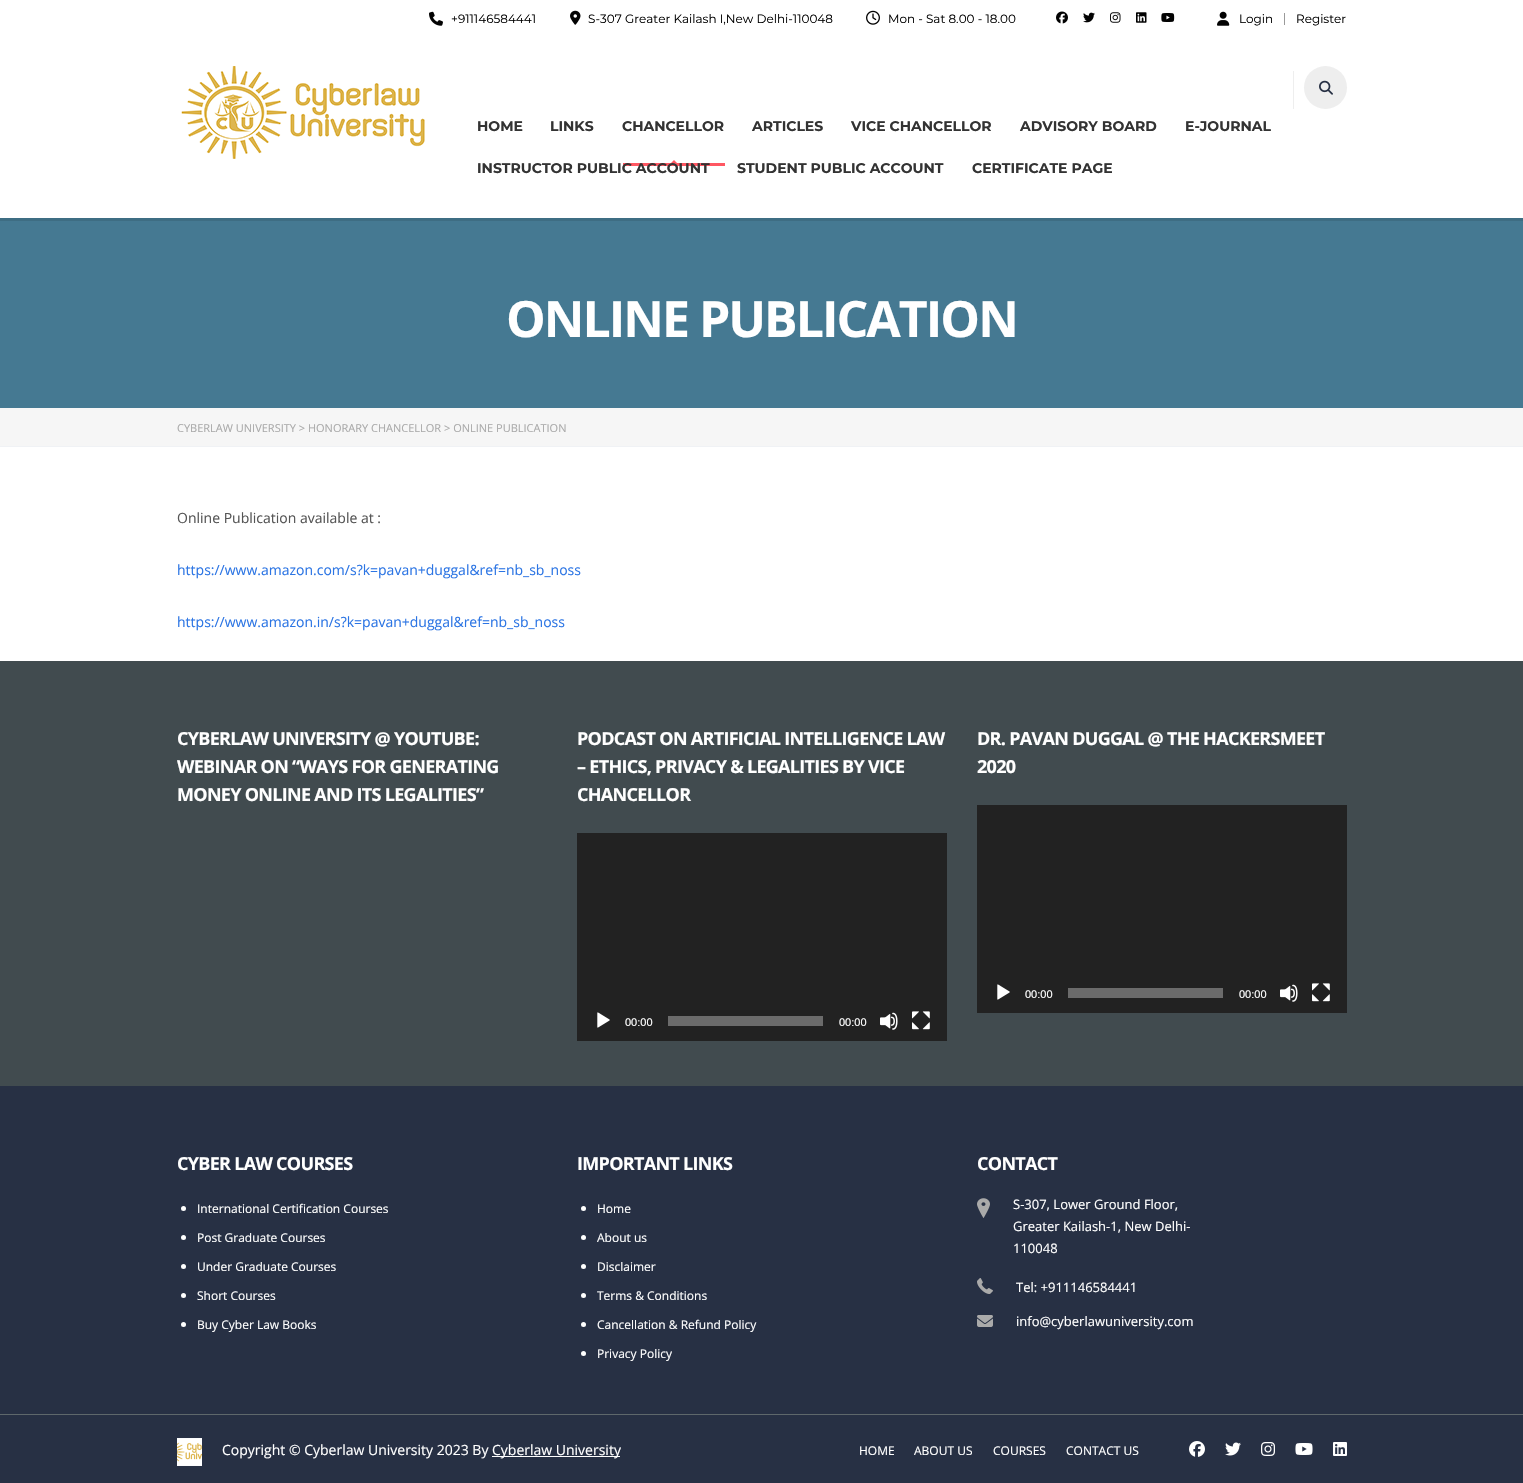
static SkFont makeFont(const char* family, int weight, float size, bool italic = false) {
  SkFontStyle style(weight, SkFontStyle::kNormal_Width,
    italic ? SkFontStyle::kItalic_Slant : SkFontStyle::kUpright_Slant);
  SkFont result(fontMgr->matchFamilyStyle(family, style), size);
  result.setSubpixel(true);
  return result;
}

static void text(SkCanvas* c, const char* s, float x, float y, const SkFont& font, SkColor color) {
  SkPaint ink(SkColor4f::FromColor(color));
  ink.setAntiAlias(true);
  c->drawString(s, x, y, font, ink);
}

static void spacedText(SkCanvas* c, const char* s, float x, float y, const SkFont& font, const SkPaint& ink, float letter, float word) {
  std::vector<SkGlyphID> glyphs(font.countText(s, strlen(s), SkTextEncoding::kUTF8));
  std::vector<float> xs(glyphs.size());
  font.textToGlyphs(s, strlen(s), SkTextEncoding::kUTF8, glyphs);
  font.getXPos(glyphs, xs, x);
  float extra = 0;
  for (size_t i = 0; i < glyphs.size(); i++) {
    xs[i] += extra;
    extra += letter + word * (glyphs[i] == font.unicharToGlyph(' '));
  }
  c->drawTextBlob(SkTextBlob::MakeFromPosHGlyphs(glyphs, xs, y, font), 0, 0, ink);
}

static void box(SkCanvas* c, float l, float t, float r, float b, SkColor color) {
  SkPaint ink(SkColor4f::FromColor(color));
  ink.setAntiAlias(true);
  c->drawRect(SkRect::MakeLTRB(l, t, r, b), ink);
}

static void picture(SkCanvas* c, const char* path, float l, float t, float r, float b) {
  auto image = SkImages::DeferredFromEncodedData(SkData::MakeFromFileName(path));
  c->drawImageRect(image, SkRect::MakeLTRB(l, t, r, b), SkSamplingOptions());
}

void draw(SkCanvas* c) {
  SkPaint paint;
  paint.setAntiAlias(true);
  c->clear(0xffffffff);
  picture(c, "img_01.png", 429, 11, 443, 26);
  SkFont face1 = makeFont("Montserrat", 400, 12);
  text(c, "+911146584441", 451, 23, face1, 0xff020202);
  picture(c, "img_02.png", 570, 10, 581, 25);
  text(c, "S-307 Greater Kailash I,New Delhi-110048", 588, 23, face1, 0xff020202);
  picture(c, "img_03.png", 866, 10, 880, 25);
  text(c, "Mon - Sat 8.00 - 18.00", 888, 23, face1, 0xff020202);
  picture(c, "img_04.png", 1056, 11, 1068, 24);
  picture(c, "img_05.png", 1083, 12, 1095, 23);
  picture(c, "img_06.png", 1110, 12, 1121, 23);
  picture(c, "img_07.png", 1136, 12, 1147, 23);
  picture(c, "img_08.png", 1161, 13, 1175, 22);
  picture(c, "img_09.png", 1217, 11, 1230, 26);
  text(c, "Login", 1239, 23, face1, 0xff020202);
  box(c, 1284, 13, 1285, 25, 0xff9a9a9a);
  text(c, "Register", 1296, 23, face1, 0xff020202);
  picture(c, "img_10.png", 181, 66, 425, 159);
  box(c, 1293, 71, 1294, 109, 0xffeeeeee);
  paint.setColor(0xffeeeeee);
  c->drawCircle(1325.5f, 87.5f, 21.5f, paint);
  picture(c, "img_11.png", 1319, 80, 1333, 95);
  SkFont face2 = makeFont("Montserrat", 700, 14);
  text(c, "HOME", 477, 131, face2, 0xff333333);
  text(c, "LINKS", 550, 131, face2, 0xff333333);
  text(c, "CHANCELLOR", 622, 131, face2, 0xff333333);
  box(c, 623, 163, 725, 166, 0xffff5762);
  paint.setColor(0xffff5762);
  c->drawPath(SkPathBuilder().moveTo(677, 163).lineTo(671, 163).lineTo(674, 160).close().detach(), paint);
  text(c, "ARTICLES", 752, 131, face2, 0xff333333);
  text(c, "VICE CHANCELLOR", 851, 131, face2, 0xff333333);
  text(c, "ADVISORY BOARD", 1020, 131, face2, 0xff333333);
  text(c, "E-JOURNAL", 1185, 131, face2, 0xff333333);
  text(c, "INSTRUCTOR PUBLIC ACCOUNT", 477, 173, face2, 0xff333333);
  text(c, "STUDENT PUBLIC ACCOUNT", 737, 173, face2, 0xff333333);
  text(c, "CERTIFICATE PAGE", 972, 173, face2, 0xff333333);
  box(c, 0, 218, 1523, 221, 0xff3e6d83);
  box(c, 0, 221, 1523, 408, 0xff457992);
  SkFont face3 = makeFont("Open Sans", 700, 50);
  paint.setColor(0xffffffff);
  spacedText(c, "ONLINE PUBLICATION", 506, 337, face3, paint, -2, 0);
  box(c, 0, 408, 1523, 446, 0xfff6f6f6);
  box(c, 0, 446, 1523, 447, 0xfff0f2f5);
  SkFont face4 = makeFont("Open Sans", 400, 11);
  text(c, "CYBERLAW UNIVERSITY > HONORARY CHANCELLOR > ONLINE PUBLICATION", 177, 432, face4, 0xffaaaaaa);
  SkFont face5 = makeFont("Open Sans", 400, 14);
  text(c, "Online Publication available at :", 177, 523, face5, 0xff555555);
  text(c, "https://www.amazon.com/s?k=pavan+duggal&ref=nb_sb_noss", 177, 575, face5, 0xff2c75e4);
  text(c, "https://www.amazon.in/s?k=pavan+duggal&ref=nb_sb_noss", 177, 627, face5, 0xff2c75e4);
  box(c, 0, 661, 1523, 1086, 0xff414b4f);
  SkFont face6 = makeFont("Open Sans", 700, 18);
  spacedText(c, "CYBERLAW UNIVERSITY @ YOUTUBE:", 177, 745, face6, paint, -0.7f, 0);
  spacedText(c, "WEBINAR ON “WAYS FOR GENERATING", 177, 773, face6, paint, -0.7f, 0);
  spacedText(c, "MONEY ONLINE AND ITS LEGALITIES”", 177, 801, face6, paint, -0.7f, 0);
  spacedText(c, "PODCAST ON ARTIFICIAL INTELLIGENCE LAW", 577, 745, face6, paint, -0.7f, 0);
  spacedText(c, "– ETHICS, PRIVACY & LEGALITIES BY VICE", 577, 773, face6, paint, -0.7f, 0);
  spacedText(c, "CHANCELLOR", 577, 801, face6, paint, -0.7f, 0);
  box(c, 577, 833, 947, 1041, 0xff222222);
  picture(c, "img_12.png", 597, 1012, 610, 1028);
  SkFont face7 = makeFont("Liberation Sans", 400, 11);
  text(c, "00:00", 625, 1026, face7, 0xffffffff);
  box(c, 668, 1016, 823, 1026, 0xff6b6b6b);
  text(c, "00:00", 839, 1026, face7, 0xffffffff);
  picture(c, "img_13.png", 880, 1012, 898, 1030);
  picture(c, "img_14.png", 912, 1011, 930, 1030);
  spacedText(c, "DR. PAVAN DUGGAL @ THE HACKERSMEET", 977, 745, face6, paint, -0.7f, 0);
  spacedText(c, "2020", 977, 773, face6, paint, -0.7f, 0);
  box(c, 977, 805, 1347, 1013, 0xff222222);
  picture(c, "img_12.png", 997, 984, 1010, 1000);
  text(c, "00:00", 1025, 998, face7, 0xffffffff);
  box(c, 1068, 988, 1223, 998, 0xff6b6b6b);
  text(c, "00:00", 1239, 998, face7, 0xffffffff);
  picture(c, "img_13.png", 1280, 984, 1298, 1002);
  picture(c, "img_14.png", 1312, 983, 1330, 1002);
  box(c, 0, 1086, 1523, 1414, 0xff273044);
  spacedText(c, "CYBER LAW COURSES", 177, 1170, face6, paint, -0.7f, 0);
  c->drawCircle(183.5f, 1208.5f, 2.5f, paint);
  SkFont face8 = makeFont("Open Sans", 400, 12);
  text(c, "International Certification Courses", 197, 1213, face8, 0xffffffff);
  c->drawCircle(183.5f, 1237.5f, 2.5f, paint);
  text(c, "Post Graduate Courses", 197, 1242, face8, 0xffffffff);
  c->drawCircle(183.5f, 1266.5f, 2.5f, paint);
  text(c, "Under Graduate Courses", 197, 1271, face8, 0xffffffff);
  c->drawCircle(183.5f, 1295.5f, 2.5f, paint);
  text(c, "Short Courses", 197, 1300, face8, 0xffffffff);
  c->drawCircle(183.5f, 1324.5f, 2.5f, paint);
  text(c, "Buy Cyber Law Books", 197, 1329, face8, 0xffffffff);
  spacedText(c, "IMPORTANT LINKS", 577, 1170, face6, paint, -0.7f, 0);
  c->drawCircle(583.5f, 1208.5f, 2.5f, paint);
  text(c, "Home", 597, 1213, face8, 0xffffffff);
  c->drawCircle(583.5f, 1237.5f, 2.5f, paint);
  text(c, "About us", 597, 1242, face8, 0xffffffff);
  c->drawCircle(583.5f, 1266.5f, 2.5f, paint);
  text(c, "Disclaimer", 597, 1271, face8, 0xffffffff);
  c->drawCircle(583.5f, 1295.5f, 2.5f, paint);
  text(c, "Terms & Conditions", 597, 1300, face8, 0xffffffff);
  c->drawCircle(583.5f, 1324.5f, 2.5f, paint);
  text(c, "Cancellation & Refund Policy", 597, 1329, face8, 0xffffffff);
  c->drawCircle(583.5f, 1353.5f, 2.5f, paint);
  text(c, "Privacy Policy", 597, 1358, face8, 0xffffffff);
  spacedText(c, "CONTACT", 977, 1170, face6, paint, -0.7f, 0);
  picture(c, "img_15.png", 977, 1198, 990, 1218);
  SkFont face9 = makeFont("Open Sans", 400, 13);
  text(c, "S-307, Lower Ground Floor,", 1013, 1209, face9, 0xffffffff);
  text(c, "Greater Kailash-1, New Delhi-", 1013, 1231, face9, 0xffffffff);
  text(c, "110048", 1013, 1253, face9, 0xffffffff);
  picture(c, "img_16.png", 977, 1278, 993, 1294);
  text(c, "Tel: +911146584441", 1016, 1292, face9, 0xffffffff);
  picture(c, "img_17.png", 977, 1315, 993, 1327);
  text(c, "info@cyberlawuniversity.com", 1016, 1326, face9, 0xffffffff);
  box(c, 0, 1415, 1523, 1483, 0xff273044);
  box(c, 0, 1414, 1523, 1415, 0xff5e676b);
  picture(c, "img_18.png", 177, 1438, 202, 1466);
  text(c, "Copyright © Cyberlaw University 2023 By", 222, 1455, face5, 0xffffffff);
  box(c, 492, 1456, 620, 1457, 0xffffffff);
  text(c, "Cyberlaw University", 492, 1455, face5, 0xffffffff);
  text(c, "HOME", 859, 1455, face8, 0xffffffff);
  text(c, "ABOUT US", 914, 1455, face8, 0xffffffff);
  text(c, "COURSES", 993, 1455, face8, 0xffffffff);
  text(c, "CONTACT US", 1066, 1455, face8, 0xffffffff);
  picture(c, "img_19.png", 1189, 1441, 1205, 1457);
  picture(c, "img_20.png", 1225, 1442, 1241, 1456);
  picture(c, "img_21.png", 1261, 1442, 1275, 1456);
  picture(c, "img_22.png", 1295, 1443, 1313, 1455);
  picture(c, "img_23.png", 1333, 1442, 1347, 1456);
}
